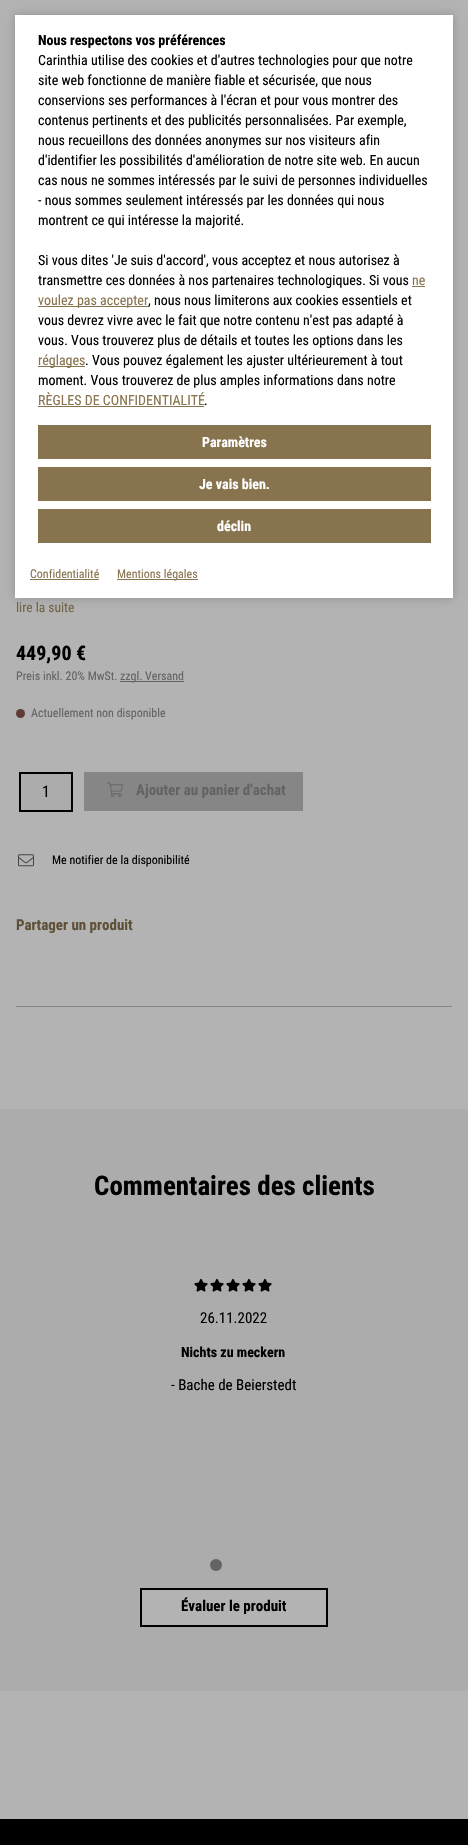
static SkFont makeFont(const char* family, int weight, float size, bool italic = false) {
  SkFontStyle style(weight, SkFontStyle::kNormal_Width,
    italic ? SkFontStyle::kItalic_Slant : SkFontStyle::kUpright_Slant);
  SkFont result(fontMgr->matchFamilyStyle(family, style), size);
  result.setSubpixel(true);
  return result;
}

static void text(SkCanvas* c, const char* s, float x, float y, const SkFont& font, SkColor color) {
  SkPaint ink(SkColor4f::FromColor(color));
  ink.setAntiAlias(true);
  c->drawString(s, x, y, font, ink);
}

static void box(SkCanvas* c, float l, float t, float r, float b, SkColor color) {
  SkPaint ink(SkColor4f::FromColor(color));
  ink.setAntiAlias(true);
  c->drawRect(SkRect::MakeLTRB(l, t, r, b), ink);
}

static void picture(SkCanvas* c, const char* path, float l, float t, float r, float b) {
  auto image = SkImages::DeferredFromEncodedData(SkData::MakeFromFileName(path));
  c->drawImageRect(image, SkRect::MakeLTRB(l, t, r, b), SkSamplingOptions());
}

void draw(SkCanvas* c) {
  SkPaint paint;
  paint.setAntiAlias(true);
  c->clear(0xffb3b3b3);
  paint.setColor(0x33000000);
  paint.setMaskFilter(SkMaskFilter::MakeBlur(kNormal_SkBlurStyle, 5));
  c->drawRect(SkRect::MakeLTRB(15, 15, 453, 598), paint);
  paint.setMaskFilter(nullptr);
  box(c, 15, 15, 453, 598, 0xffffffff);
  SkFont face1 = makeFont("Roboto Condensed", 700, 14);
  text(c, "Nous respectons vos préférences", 38, 45, face1, 0xff000000);
  SkFont face2 = makeFont("Roboto Condensed", 400, 14);
  text(c, "Carinthia utilise des cookies et d'autres technologies pour que notre", 38, 65, face2, 0xff000000);
  text(c, "site web fonctionne de manière fiable et sécurisée, que nous", 38, 85, face2, 0xff000000);
  text(c, "conservions ses performances à l'écran et pour vous montrer des", 38, 105, face2, 0xff000000);
  text(c, "contenus pertinents et des publicités personnalisées. Par exemple,", 38, 125, face2, 0xff000000);
  text(c, "nous recueillons des données anonymes sur nos visiteurs afin", 38, 145, face2, 0xff000000);
  text(c, "d'identifier les possibilités d'amélioration de notre site web. En aucun", 38, 165, face2, 0xff000000);
  text(c, "cas nous ne sommes intéressés par le suivi de personnes individuelles", 38, 185, face2, 0xff000000);
  text(c, "- nous sommes seulement intéressés par les données qui nous", 38, 205, face2, 0xff000000);
  text(c, "montrent ce qui intéresse la majorité.", 38, 225, face2, 0xff000000);
  text(c, "Si vous dites 'Je suis d'accord', vous acceptez et nous autorisez à", 38, 265, face2, 0xff000000);
  text(c, "transmettre ces données à nos partenaires technologiques. Si vous", 38, 285, face2, 0xff000000);
  text(c, "ne", 412, 285, face2, 0xff87734e);
  box(c, 412, 286, 425, 287, 0xff87734e);
  box(c, 38, 306, 148, 307, 0xff87734e);
  text(c, "voulez pas accepter", 38, 305, face2, 0xff87734e);
  text(c, ", nous nous limiterons aux cookies essentiels et", 148, 305, face2, 0xff000000);
  text(c, "vous devrez vivre avec le fait que notre contenu n'est pas adapté à", 38, 325, face2, 0xff000000);
  text(c, "vous. Vous trouverez plus de détails et toutes les options dans les", 38, 345, face2, 0xff000000);
  box(c, 38, 366, 85, 367, 0xff87734e);
  text(c, "réglages", 38, 365, face2, 0xff87734e);
  text(c, ". Vous pouvez également les ajuster ultérieurement à tout", 85, 365, face2, 0xff000000);
  text(c, "moment. Vous trouverez de plus amples informations dans notre", 38, 385, face2, 0xff000000);
  text(c, "RÈGLES DE CONFIDENTIALITÉ", 38, 405, face2, 0xff87734e);
  box(c, 38, 406, 204, 407, 0xff87734e);
  text(c, ".", 204, 405, face2, 0xff000000);
  box(c, 38, 425, 431, 459, 0xff87734e);
  text(c, "Paramètres", 202, 447, face1, 0xffffffff);
  box(c, 38, 467, 431, 501, 0xff87734e);
  text(c, "Je vais bien.", 199, 489, face1, 0xffffffff);
  box(c, 38, 509, 431, 543, 0xff87734e);
  text(c, "déclin", 217, 531, face1, 0xffffffff);
  SkFont face3 = makeFont("Roboto Condensed", 400, 12);
  text(c, "Confidentialité", 30, 578, face3, 0xff87734e);
  box(c, 30, 579, 99, 580, 0xff87734e);
  box(c, 117, 579, 198, 580, 0xff87734e);
  text(c, "Mentions légales", 117, 578, face3, 0xff87734e);
  SkFont face4 = makeFont("Roboto Condensed", 400, 13.5f);
  text(c, "lire la suite", 16, 612, face4, 0xff736345);
  SkFont face5 = makeFont("Roboto Condensed", 700, 20);
  text(c, "449,90 €", 16, 660, face5, 0xff000000);
  text(c, "Preis inkl. 20% MwSt.", 16, 680, face3, 0xff636363);
  box(c, 120, 681, 184, 682, 0xff636363);
  text(c, "zzgl. Versand", 120, 680, face3, 0xff636363);
  paint.setColor(0xff5f3d37);
  c->drawCircle(20.5f, 713.5f, 4.5f, paint);
  text(c, "Actuellement non disponible", 31, 717, face3, 0xff636363);
  paint.setColor(0xffacacac);
  c->drawRect(SkRect::MakeLTRB(20, 773, 72, 811), paint);
  paint.setStyle(SkPaint::kStroke_Style);
  paint.setStrokeWidth(2);
  paint.setColor(0xff000000);
  c->drawRect(SkRect::MakeLTRB(20, 773, 72, 811), paint);
  SkFont face6 = makeFont("Roboto Condensed", 400, 16);
  text(c, "1", 42, 797, face6, 0xff000000);
  box(c, 84, 772, 303, 811, 0xff868686);
  picture(c, "img_01.png", 107, 782, 123, 797);
  SkFont face7 = makeFont("Roboto Condensed", 700, 15);
  text(c, "Ajouter au panier d'achat", 136, 795, face7, 0xff636363);
  picture(c, "img_02.png", 18, 854, 34, 867);
  text(c, "Me notifier de la disponibilité", 52, 864, face3, 0xff000000);
  text(c, "Partager un produit", 16, 930, face7, 0xff5f5137);
  box(c, 16, 1006, 452, 1007, 0xff868686);
  box(c, 0, 1109, 468, 1691, 0xffacacac);
  SkFont face8 = makeFont("Roboto Condensed", 700, 27);
  text(c, "Commentaires des clients", 94, 1195, face8, 0xff000000);
  picture(c, "img_03.png", 194, 1278, 208, 1292);
  picture(c, "img_03.png", 210, 1278, 224, 1292);
  picture(c, "img_03.png", 226, 1278, 240, 1292);
  picture(c, "img_03.png", 242, 1278, 256, 1292);
  picture(c, "img_03.png", 258, 1278, 272, 1292);
  SkFont face9 = makeFont("Roboto Condensed", 400, 15);
  text(c, "26.11.2022", 200, 1323, face9, 0xff000000);
  text(c, "Nichts zu meckern", 181, 1357, face1, 0xff000000);
  text(c, "- Bache de Beierstedt", 171, 1390, face9, 0xff000000);
  paint.setStyle(SkPaint::kFill_Style);
  paint.setColor(0xff636363);
  c->drawCircle(216, 1565, 6, paint);
  paint.setColor(0xffb3b3b3);
  c->drawRect(SkRect::MakeLTRB(141, 1589, 327, 1626), paint);
  paint.setStyle(SkPaint::kStroke_Style);
  paint.setColor(0xff000000);
  c->drawRect(SkRect::MakeLTRB(141, 1589, 327, 1626), paint);
  text(c, "Évaluer le produit", 181, 1611, face7, 0xff000000);
  box(c, 0, 1819, 468, 1845, 0xff000000);
}
